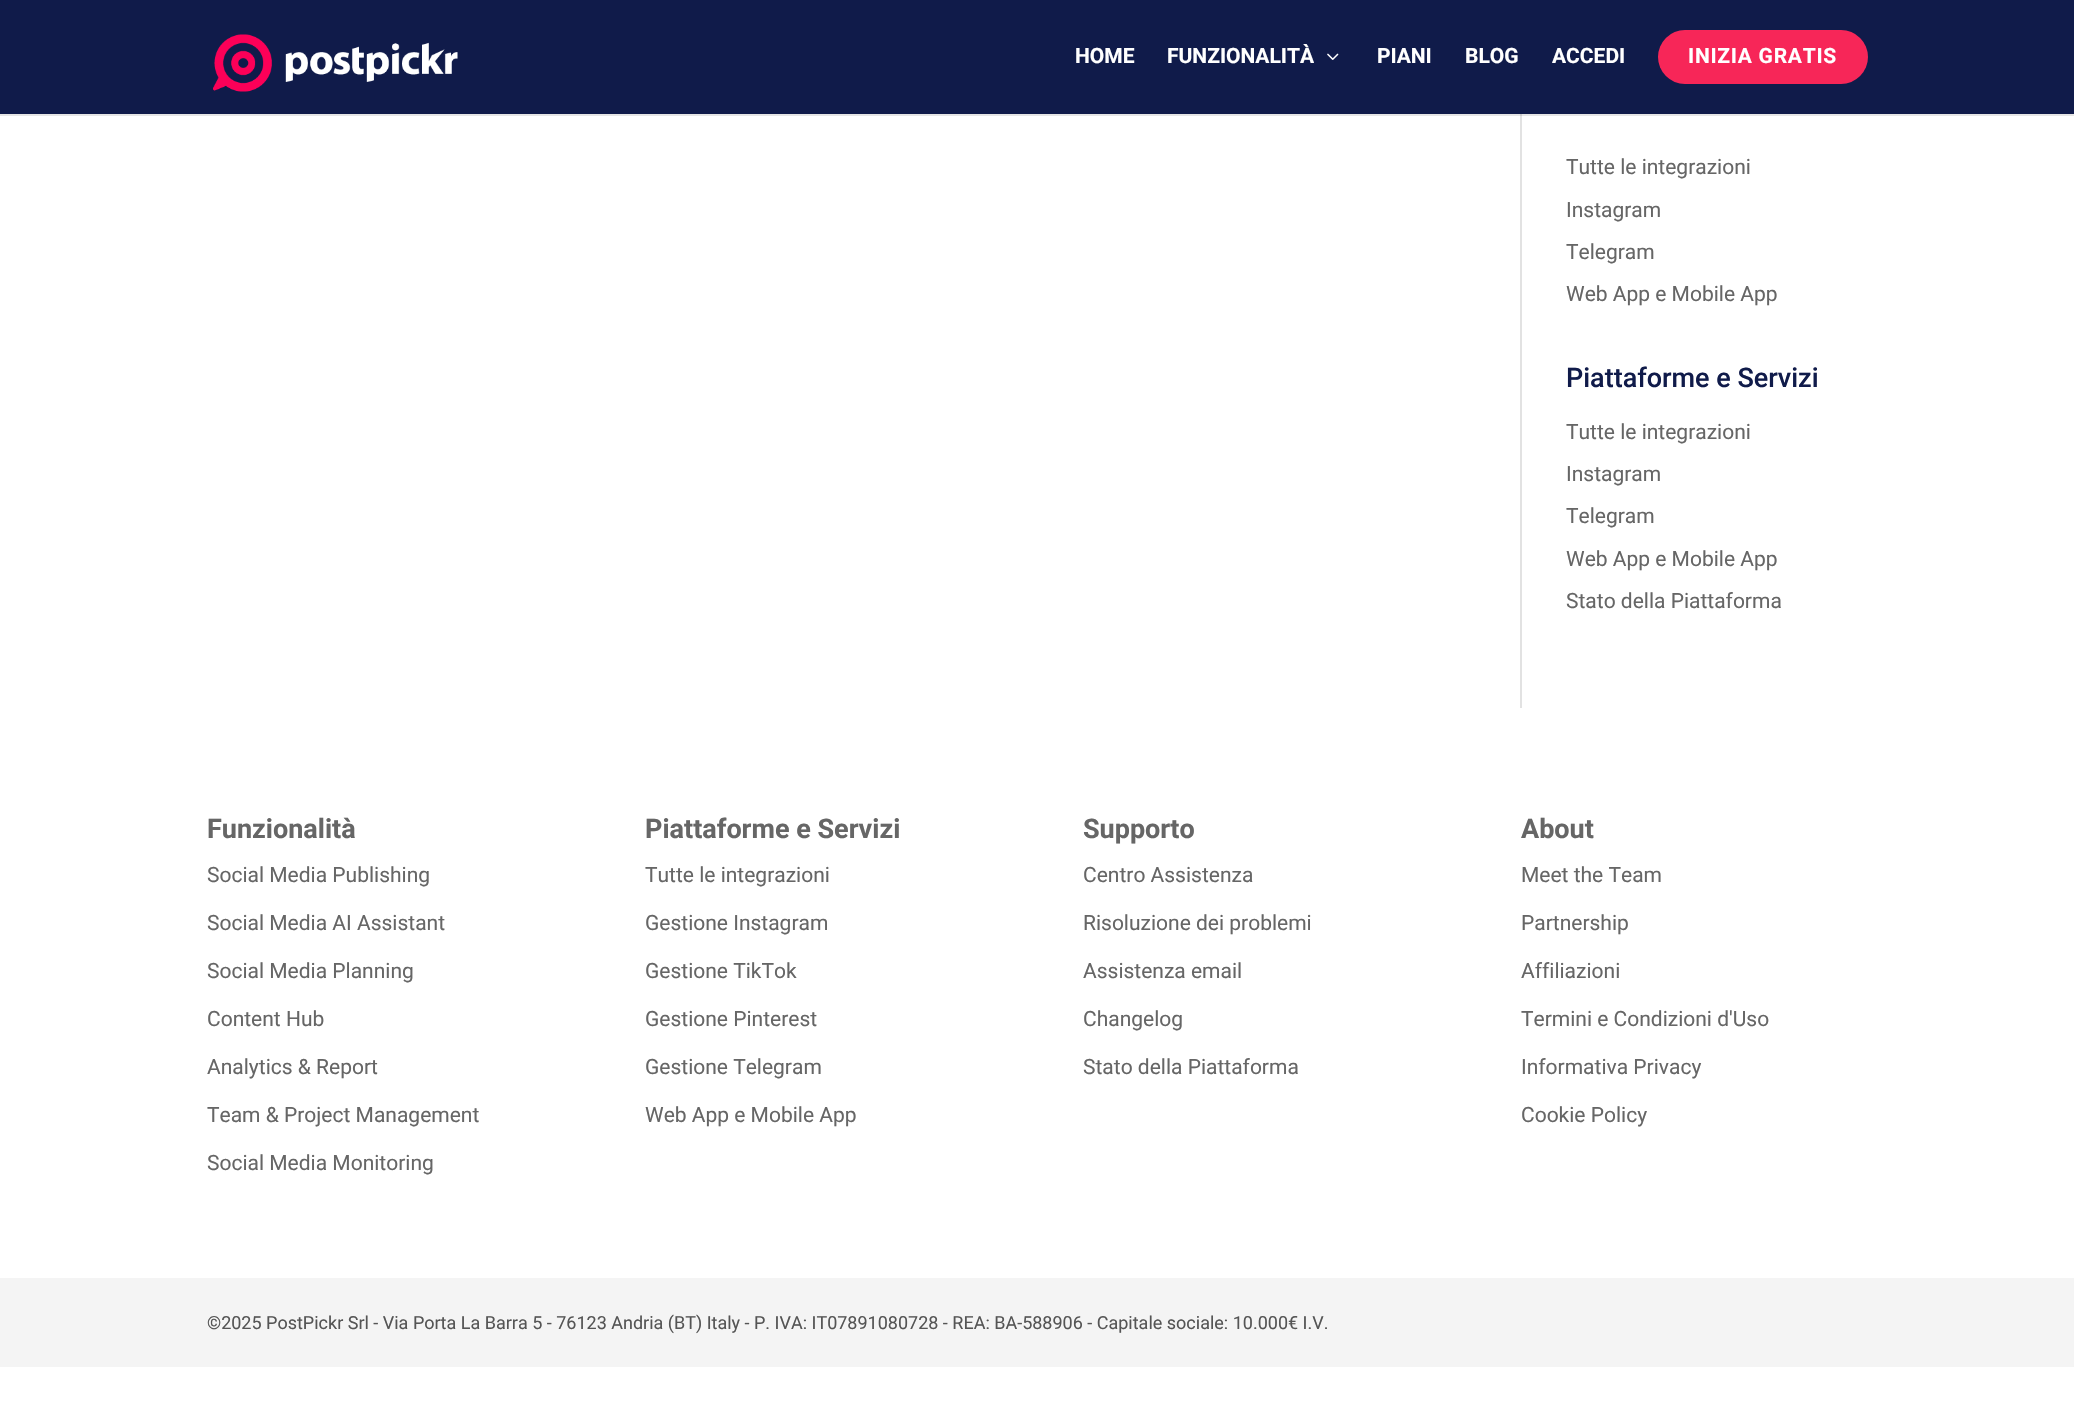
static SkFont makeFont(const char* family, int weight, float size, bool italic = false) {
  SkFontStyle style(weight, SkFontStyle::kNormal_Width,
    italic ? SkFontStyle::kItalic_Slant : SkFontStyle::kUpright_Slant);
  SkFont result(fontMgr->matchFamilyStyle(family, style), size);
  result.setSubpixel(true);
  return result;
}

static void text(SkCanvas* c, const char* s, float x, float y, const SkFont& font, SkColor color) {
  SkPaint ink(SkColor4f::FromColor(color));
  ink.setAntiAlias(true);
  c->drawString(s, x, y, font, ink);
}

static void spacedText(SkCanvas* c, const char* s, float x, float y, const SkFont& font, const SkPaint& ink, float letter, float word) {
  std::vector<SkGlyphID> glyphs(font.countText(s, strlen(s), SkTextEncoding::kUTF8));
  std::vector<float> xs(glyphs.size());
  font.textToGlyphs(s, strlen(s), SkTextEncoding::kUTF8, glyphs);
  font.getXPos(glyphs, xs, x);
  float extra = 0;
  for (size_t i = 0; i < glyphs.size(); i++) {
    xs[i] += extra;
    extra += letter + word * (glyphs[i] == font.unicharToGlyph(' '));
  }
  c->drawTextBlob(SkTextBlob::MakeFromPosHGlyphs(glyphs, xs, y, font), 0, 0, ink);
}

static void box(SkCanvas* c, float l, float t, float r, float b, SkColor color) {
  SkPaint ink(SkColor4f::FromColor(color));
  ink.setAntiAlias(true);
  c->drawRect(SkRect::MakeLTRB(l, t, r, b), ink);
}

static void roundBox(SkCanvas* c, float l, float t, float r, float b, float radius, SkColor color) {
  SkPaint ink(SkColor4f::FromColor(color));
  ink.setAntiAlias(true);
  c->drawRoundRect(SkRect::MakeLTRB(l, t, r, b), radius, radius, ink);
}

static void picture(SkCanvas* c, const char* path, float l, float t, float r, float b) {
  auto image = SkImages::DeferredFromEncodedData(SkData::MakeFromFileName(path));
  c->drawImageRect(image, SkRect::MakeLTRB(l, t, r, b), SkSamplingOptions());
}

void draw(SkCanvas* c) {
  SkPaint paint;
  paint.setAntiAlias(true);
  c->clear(0xffffffff);
  box(c, 1520, 114, 1522, 708, 0xffe2e2e2);
  paint.setColor(0x1a000000);
  c->drawPath(SkPathBuilder().moveTo(0, 114).lineTo(0, 116).lineTo(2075, 116).lineTo(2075, 2).lineTo(2074, 2).lineTo(2074, 114).close().detach(), paint);
  box(c, 0, 0, 2074, 114, 0xff101b4a);
  picture(c, "img_01.png", 213, 34, 458, 92);
  SkFont face1 = makeFont("Roboto", 700, 21);
  text(c, "HOME", 1075, 63, face1, 0xffffffff);
  text(c, "FUNZIONALITÀ", 1167, 63, face1, 0xffffffff);
  picture(c, "img_02.png", 1327, 53, 1339, 60);
  text(c, "PIANI", 1377, 63, face1, 0xffffffff);
  text(c, "BLOG", 1465, 63, face1, 0xffffffff);
  text(c, "ACCEDI", 1552, 63, face1, 0xffffffff);
  roundBox(c, 1658, 30, 1868, 84, 27, 0xfff72658);
  paint.setColor(0xffffffff);
  spacedText(c, "INIZIA GRATIS", 1688, 63, face1, paint, 0.75f, 0);
  SkFont face2 = makeFont("Roboto", 400, 21);
  text(c, "Tutte le integrazioni", 1566, 174, face2, 0xff666666);
  text(c, "Instagram", 1566, 217, face2, 0xff666666);
  text(c, "Telegram", 1566, 259, face2, 0xff666666);
  text(c, "Web App e Mobile App", 1566, 301, face2, 0xff666666);
  SkFont face3 = makeFont("Roboto", 500, 27);
  text(c, "Piattaforme e Servizi", 1566, 387, face3, 0xff101b4a);
  text(c, "Tutte le integrazioni", 1566, 439, face2, 0xff666666);
  text(c, "Instagram", 1566, 481, face2, 0xff666666);
  text(c, "Telegram", 1566, 523, face2, 0xff666666);
  text(c, "Web App e Mobile App", 1566, 566, face2, 0xff666666);
  text(c, "Stato della Piattaforma", 1566, 608, face2, 0xff666666);
  SkFont face4 = makeFont("Roboto", 700, 27);
  text(c, "Funzionalità", 207, 838, face4, 0xff666666);
  text(c, "Social Media Publishing", 207, 882, face2, 0xff666666);
  text(c, "Social Media AI Assistant", 207, 930, face2, 0xff666666);
  text(c, "Social Media Planning", 207, 978, face2, 0xff666666);
  text(c, "Content Hub", 207, 1026, face2, 0xff666666);
  text(c, "Analytics & Report", 207, 1074, face2, 0xff666666);
  text(c, "Team & Project Management", 207, 1122, face2, 0xff666666);
  text(c, "Social Media Monitoring", 207, 1170, face2, 0xff666666);
  text(c, "Piattaforme e Servizi", 645, 838, face4, 0xff666666);
  text(c, "Tutte le integrazioni", 645, 882, face2, 0xff666666);
  text(c, "Gestione Instagram", 645, 930, face2, 0xff666666);
  text(c, "Gestione TikTok", 645, 978, face2, 0xff666666);
  text(c, "Gestione Pinterest", 645, 1026, face2, 0xff666666);
  text(c, "Gestione Telegram", 645, 1074, face2, 0xff666666);
  text(c, "Web App e Mobile App", 645, 1122, face2, 0xff666666);
  text(c, "Supporto", 1083, 838, face4, 0xff666666);
  text(c, "Centro Assistenza", 1083, 882, face2, 0xff666666);
  text(c, "Risoluzione dei problemi", 1083, 930, face2, 0xff666666);
  text(c, "Assistenza email", 1083, 978, face2, 0xff666666);
  text(c, "Changelog", 1083, 1026, face2, 0xff666666);
  text(c, "Stato della Piattaforma", 1083, 1074, face2, 0xff666666);
  text(c, "About", 1521, 838, face4, 0xff666666);
  text(c, "Meet the Team", 1521, 882, face2, 0xff666666);
  text(c, "Partnership", 1521, 930, face2, 0xff666666);
  text(c, "Affiliazioni", 1521, 978, face2, 0xff666666);
  text(c, "Termini e Condizioni d'Uso", 1521, 1026, face2, 0xff666666);
  text(c, "Informativa Privacy", 1521, 1074, face2, 0xff666666);
  text(c, "Cookie Policy", 1521, 1122, face2, 0xff666666);
  box(c, 0, 1278, 2074, 1367, 0xfff4f4f4);
  SkFont face5 = makeFont("Roboto", 400, 18);
  text(c, "©2025 PostPickr Srl - Via Porta La Barra 5 - 76123 Andria (BT) Italy - P. IVA: IT07891080728 - REA: BA-588906 - Capitale sociale: 10.000€ I.V.", 207, 1329, face5, 0xff555555);
}
